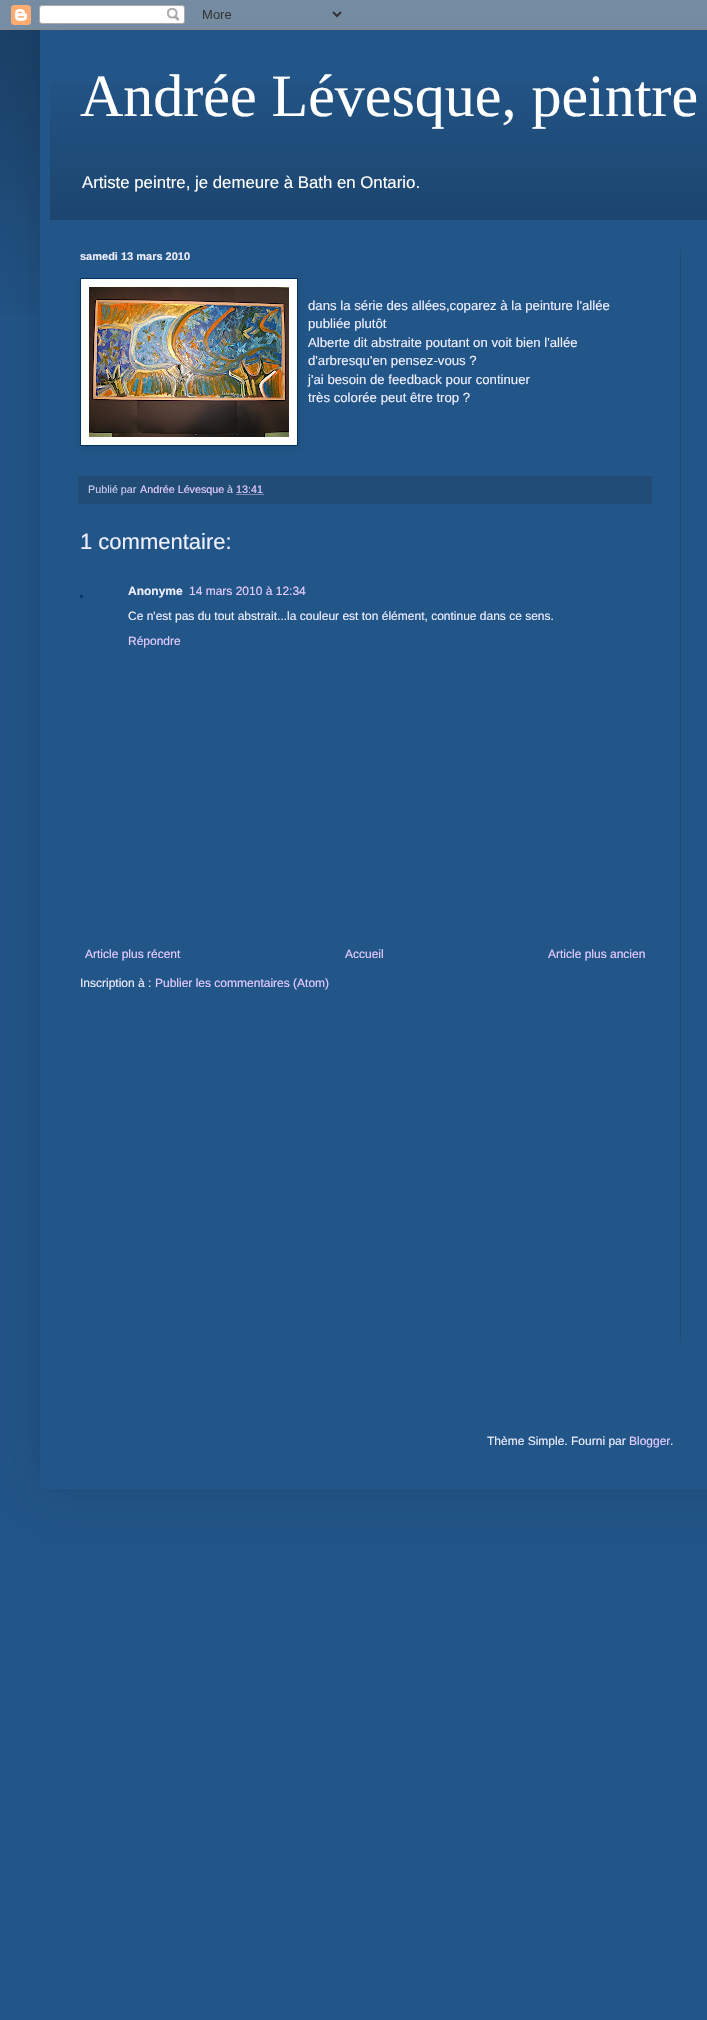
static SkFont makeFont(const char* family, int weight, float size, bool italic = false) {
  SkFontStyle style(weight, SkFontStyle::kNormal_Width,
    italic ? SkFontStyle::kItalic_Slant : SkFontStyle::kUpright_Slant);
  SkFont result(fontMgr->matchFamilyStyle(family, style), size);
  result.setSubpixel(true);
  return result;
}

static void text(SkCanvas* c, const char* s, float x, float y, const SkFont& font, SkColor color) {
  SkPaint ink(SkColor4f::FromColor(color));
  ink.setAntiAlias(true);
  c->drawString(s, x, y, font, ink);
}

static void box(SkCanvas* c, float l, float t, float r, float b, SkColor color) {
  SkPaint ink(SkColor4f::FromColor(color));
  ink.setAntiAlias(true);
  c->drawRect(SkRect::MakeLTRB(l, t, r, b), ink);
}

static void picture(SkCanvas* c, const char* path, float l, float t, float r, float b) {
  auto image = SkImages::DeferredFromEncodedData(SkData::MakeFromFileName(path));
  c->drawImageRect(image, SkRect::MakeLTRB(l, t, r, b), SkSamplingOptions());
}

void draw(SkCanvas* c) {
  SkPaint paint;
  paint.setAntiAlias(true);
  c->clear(0xff225588);
  picture(c, "img_01.png", 0, 0, 707, 314);
  paint.setColor(0x26000000);
  paint.setMaskFilter(SkMaskFilter::MakeBlur(kNormal_SkBlurStyle, 20));
  c->drawRect(SkRect::MakeLTRB(40, 30, 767, 1489), paint);
  paint.setMaskFilter(nullptr);
  picture(c, "img_02.png", 0, 0, 707, 30);
  box(c, 40, 30, 707, 1489, 0xff225588);
  picture(c, "img_03.png", 50, 82, 707, 220);
  SkFont face1 = makeFont("Liberation Serif", 400, 60);
  text(c, "Andrée Lévesque, peintre", 80, 116, face1, 0xffffffff);
  SkFont face2 = makeFont("Liberation Sans", 400, 16.8f);
  text(c, "Artiste peintre, je demeure à Bath en Ontario.", 82, 188, face2, 0xffffffff);
  SkFont face3 = makeFont("Liberation Sans", 700, 11);
  text(c, "samedi 13 mars 2010", 80, 260, face3, 0xffeeefff);
  paint.setColor(0x1a000000);
  paint.setMaskFilter(SkMaskFilter::MakeBlur(kNormal_SkBlurStyle, 2.5f));
  c->drawRect(SkRect::MakeLTRB(81, 279, 299, 447), paint);
  paint.setMaskFilter(nullptr);
  paint.setColor(0xffffffff);
  c->drawRect(SkRect::MakeLTRB(80.5f, 278.5f, 297.5f, 445.5f), paint);
  paint.setStyle(SkPaint::kStroke_Style);
  paint.setStrokeWidth(1);
  paint.setColor(0xff003366);
  c->drawRect(SkRect::MakeLTRB(80.5f, 278.5f, 297.5f, 445.5f), paint);
  picture(c, "img_04.png", 89, 287, 289, 437);
  SkFont face4 = makeFont("Liberation Sans", 400, 13.2f);
  text(c, "dans la série des allées,coparez à la peinture l'allée", 308, 310, face4, 0xffeeefff);
  text(c, "publiée plutôt", 308, 328, face4, 0xffeeefff);
  text(c, "Alberte dit abstraite poutant on voit bien l'allée", 308, 347, face4, 0xffeeefff);
  text(c, "d'arbresqu'en pensez-vous ?", 308, 365, face4, 0xffeeefff);
  text(c, "j'ai besoin de feedback pour continuer", 308, 384, face4, 0xffeeefff);
  text(c, "très colorée peut être trop ?", 308, 402, face4, 0xffeeefff);
  box(c, 78, 476, 652, 504, 0xff214c76);
  SkFont face5 = makeFont("Liberation Sans", 400, 10.75f);
  text(c, "Publié par", 88, 493, face5, 0xffccccee);
  text(c, "Andrée Lévesque", 140, 493, face5, 0xffe5ccff);
  text(c, "à", 227, 493, face5, 0xffccccee);
  text(c, "13:41", 236, 493, face5, 0xffe5ccff);
  paint.setColor(0xffe5ccff);
  paint.setPathEffect(SkDashPathEffect::Make({{1, 1}}, 0));
  c->drawPath(SkPathBuilder().moveTo(236.5f, 494.5f).lineTo(263.5f, 494.5f).detach(), paint);
  paint.setPathEffect(nullptr);
  SkFont face6 = makeFont("Liberation Sans", 400, 22);
  text(c, "1 commentaire:", 80, 549, face6, 0xffeeefff);
  paint.setColor(0xff003366);
  c->drawRect(SkRect::MakeLTRB(80.5f, 595.5f, 82.5f, 597.5f), paint);
  SkFont face7 = makeFont("Liberation Sans", 700, 12);
  text(c, "Anonyme", 128, 595, face7, 0xffeeefff);
  SkFont face8 = makeFont("Liberation Sans", 400, 12);
  text(c, "14 mars 2010 à 12:34", 189, 595, face8, 0xffe5ccff);
  text(c, "Ce n'est pas du tout abstrait...la couleur est ton élément, continue dans ce sens.", 128, 620, face8, 0xffeeefff);
  text(c, "Répondre", 128, 645, face8, 0xffe5ccff);
  text(c, "Article plus récent", 85, 958, face8, 0xffe5ccff);
  text(c, "Accueil", 345, 958, face8, 0xffe5ccff);
  text(c, "Article plus ancien", 548, 958, face8, 0xffe5ccff);
  text(c, "Inscription à :", 80, 987, face8, 0xffeeefff);
  text(c, "Publier les commentaires (Atom)", 155, 987, face8, 0xffe5ccff);
  box(c, 680, 250, 681, 1343, 0xff214c76);
  text(c, "Thème Simple. Fourni par", 487, 1445, face8, 0xffeeefff);
  text(c, "Blogger", 629, 1445, face8, 0xffe5ccff);
  text(c, ".", 670, 1445, face8, 0xffeeefff);
}
